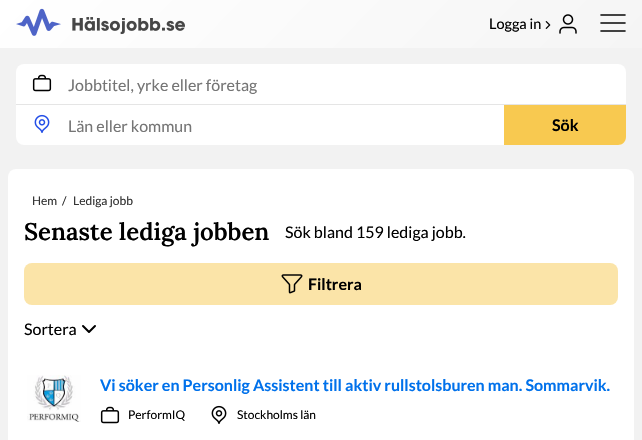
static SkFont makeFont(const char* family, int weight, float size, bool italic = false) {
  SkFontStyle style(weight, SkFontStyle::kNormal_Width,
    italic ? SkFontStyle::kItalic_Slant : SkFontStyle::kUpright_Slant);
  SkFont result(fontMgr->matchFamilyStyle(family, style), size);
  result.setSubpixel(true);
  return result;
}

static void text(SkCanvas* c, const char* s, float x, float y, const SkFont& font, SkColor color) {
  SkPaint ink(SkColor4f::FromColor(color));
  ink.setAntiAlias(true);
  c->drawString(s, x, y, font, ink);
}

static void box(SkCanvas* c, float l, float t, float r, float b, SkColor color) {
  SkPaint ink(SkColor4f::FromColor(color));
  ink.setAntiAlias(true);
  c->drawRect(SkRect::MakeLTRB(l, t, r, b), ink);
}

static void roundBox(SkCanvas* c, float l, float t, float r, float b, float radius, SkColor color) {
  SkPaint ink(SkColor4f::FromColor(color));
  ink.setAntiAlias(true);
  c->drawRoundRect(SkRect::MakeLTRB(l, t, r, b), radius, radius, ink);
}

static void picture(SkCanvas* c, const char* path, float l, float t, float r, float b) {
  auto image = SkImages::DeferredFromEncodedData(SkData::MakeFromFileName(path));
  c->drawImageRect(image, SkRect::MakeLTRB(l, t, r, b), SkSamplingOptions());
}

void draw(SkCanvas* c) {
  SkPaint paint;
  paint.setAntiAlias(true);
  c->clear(0xfff2f2f2);
  {
    const SkColor colors[] = {0xffffffff, 0xfff5f5f5};
    const float stops[] = {0, 1};
    const SkPoint ends[] = {{148, -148}, {494, 197}};
    paint.setShader(SkGradientShader::MakeLinear(ends, colors, stops, 2, SkTileMode::kClamp));
    paint.setAlpha(255);
  }
  c->drawRect(SkRect::MakeLTRB(0, 0, 642, 48), paint);
  picture(c, "img_01.png", 16, 8, 185, 36);
  SkFont face1 = makeFont("Lato", 400, 14.5f);
  text(c, "Logga in", 489, 29, face1, 0xff000000);
  picture(c, "img_02.png", 545, 21, 551, 29);
  picture(c, "img_03.png", 559, 14, 577, 34);
  picture(c, "img_04.png", 600, 14, 626, 32);
  roundBox(c, 16, 64, 626, 145, 8, 0xffffffff);
  box(c, 16, 104, 626, 105, 0xffe5e5e5);
  picture(c, "img_05.png", 32, 74, 52, 92);
  SkFont face2 = makeFont("Lato", 400, 16);
  text(c, "Jobbtitel, yrke eller företag", 68, 91, face2, 0xff757575);
  picture(c, "img_06.png", 34, 114, 50, 133);
  text(c, "Län eller kommun", 68, 132, face2, 0xff757575);
  paint.setShader(nullptr);
  paint.setColor(0xfff8c950);
  c->drawPath(SkPathBuilder().moveTo(504, 105).lineTo(626, 105).lineTo(626, 137).cubicTo(626, 141.5f, 622.5f, 145, 618, 145).lineTo(504, 145).close().detach(), paint);
  SkFont face3 = makeFont("Lato", 700, 16);
  text(c, "Sök", 552, 131, face3, 0xff000000);
  roundBox(c, 8, 169, 634, 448, 8, 0xffffffff);
  SkFont face4 = makeFont("Lato", 400, 12);
  text(c, "Hem", 32, 205, face4, 0xff333333);
  text(c, "/", 62, 205, face4, 0xff333333);
  text(c, "Lediga jobb", 73, 205, face4, 0xff333333);
  SkFont face5 = makeFont("Lora", 600, 24);
  text(c, "Senaste lediga jobben", 24, 240, face5, 0xff000000);
  text(c, "Sök bland 159 lediga jobb.", 285, 238, face2, 0xff000000);
  roundBox(c, 24, 263, 618, 305, 8, 0xfffbe4a8);
  picture(c, "img_07.png", 281, 274, 303, 294);
  text(c, "Filtrera", 308, 290, face3, 0xff000000);
  text(c, "Sortera", 24, 335, face2, 0xff000000);
  paint.setStyle(SkPaint::kStroke_Style);
  paint.setStrokeWidth(2);
  paint.setStrokeCap(SkPaint::kRound_Cap);
  paint.setStrokeJoin(SkPaint::kRound_Join);
  paint.setColor(0xff000000);
  c->drawPath(SkPathBuilder().moveTo(83, 326).lineTo(89, 332).lineTo(95, 326).detach(), paint);
  picture(c, "img_08.png", 27, 375, 81, 422);
  text(c, "Vi söker en Personlig Assistent till aktiv rullstolsburen man. Sommarvik.", 100, 391, face3, 0xff0071eb);
  picture(c, "img_05.png", 100, 406, 120, 424);
  text(c, "PerformIQ", 128, 419, face4, 0xff000000);
  picture(c, "img_09.png", 211, 405, 227, 424);
  text(c, "Stockholms län", 237, 419, face4, 0xff000000);
}
